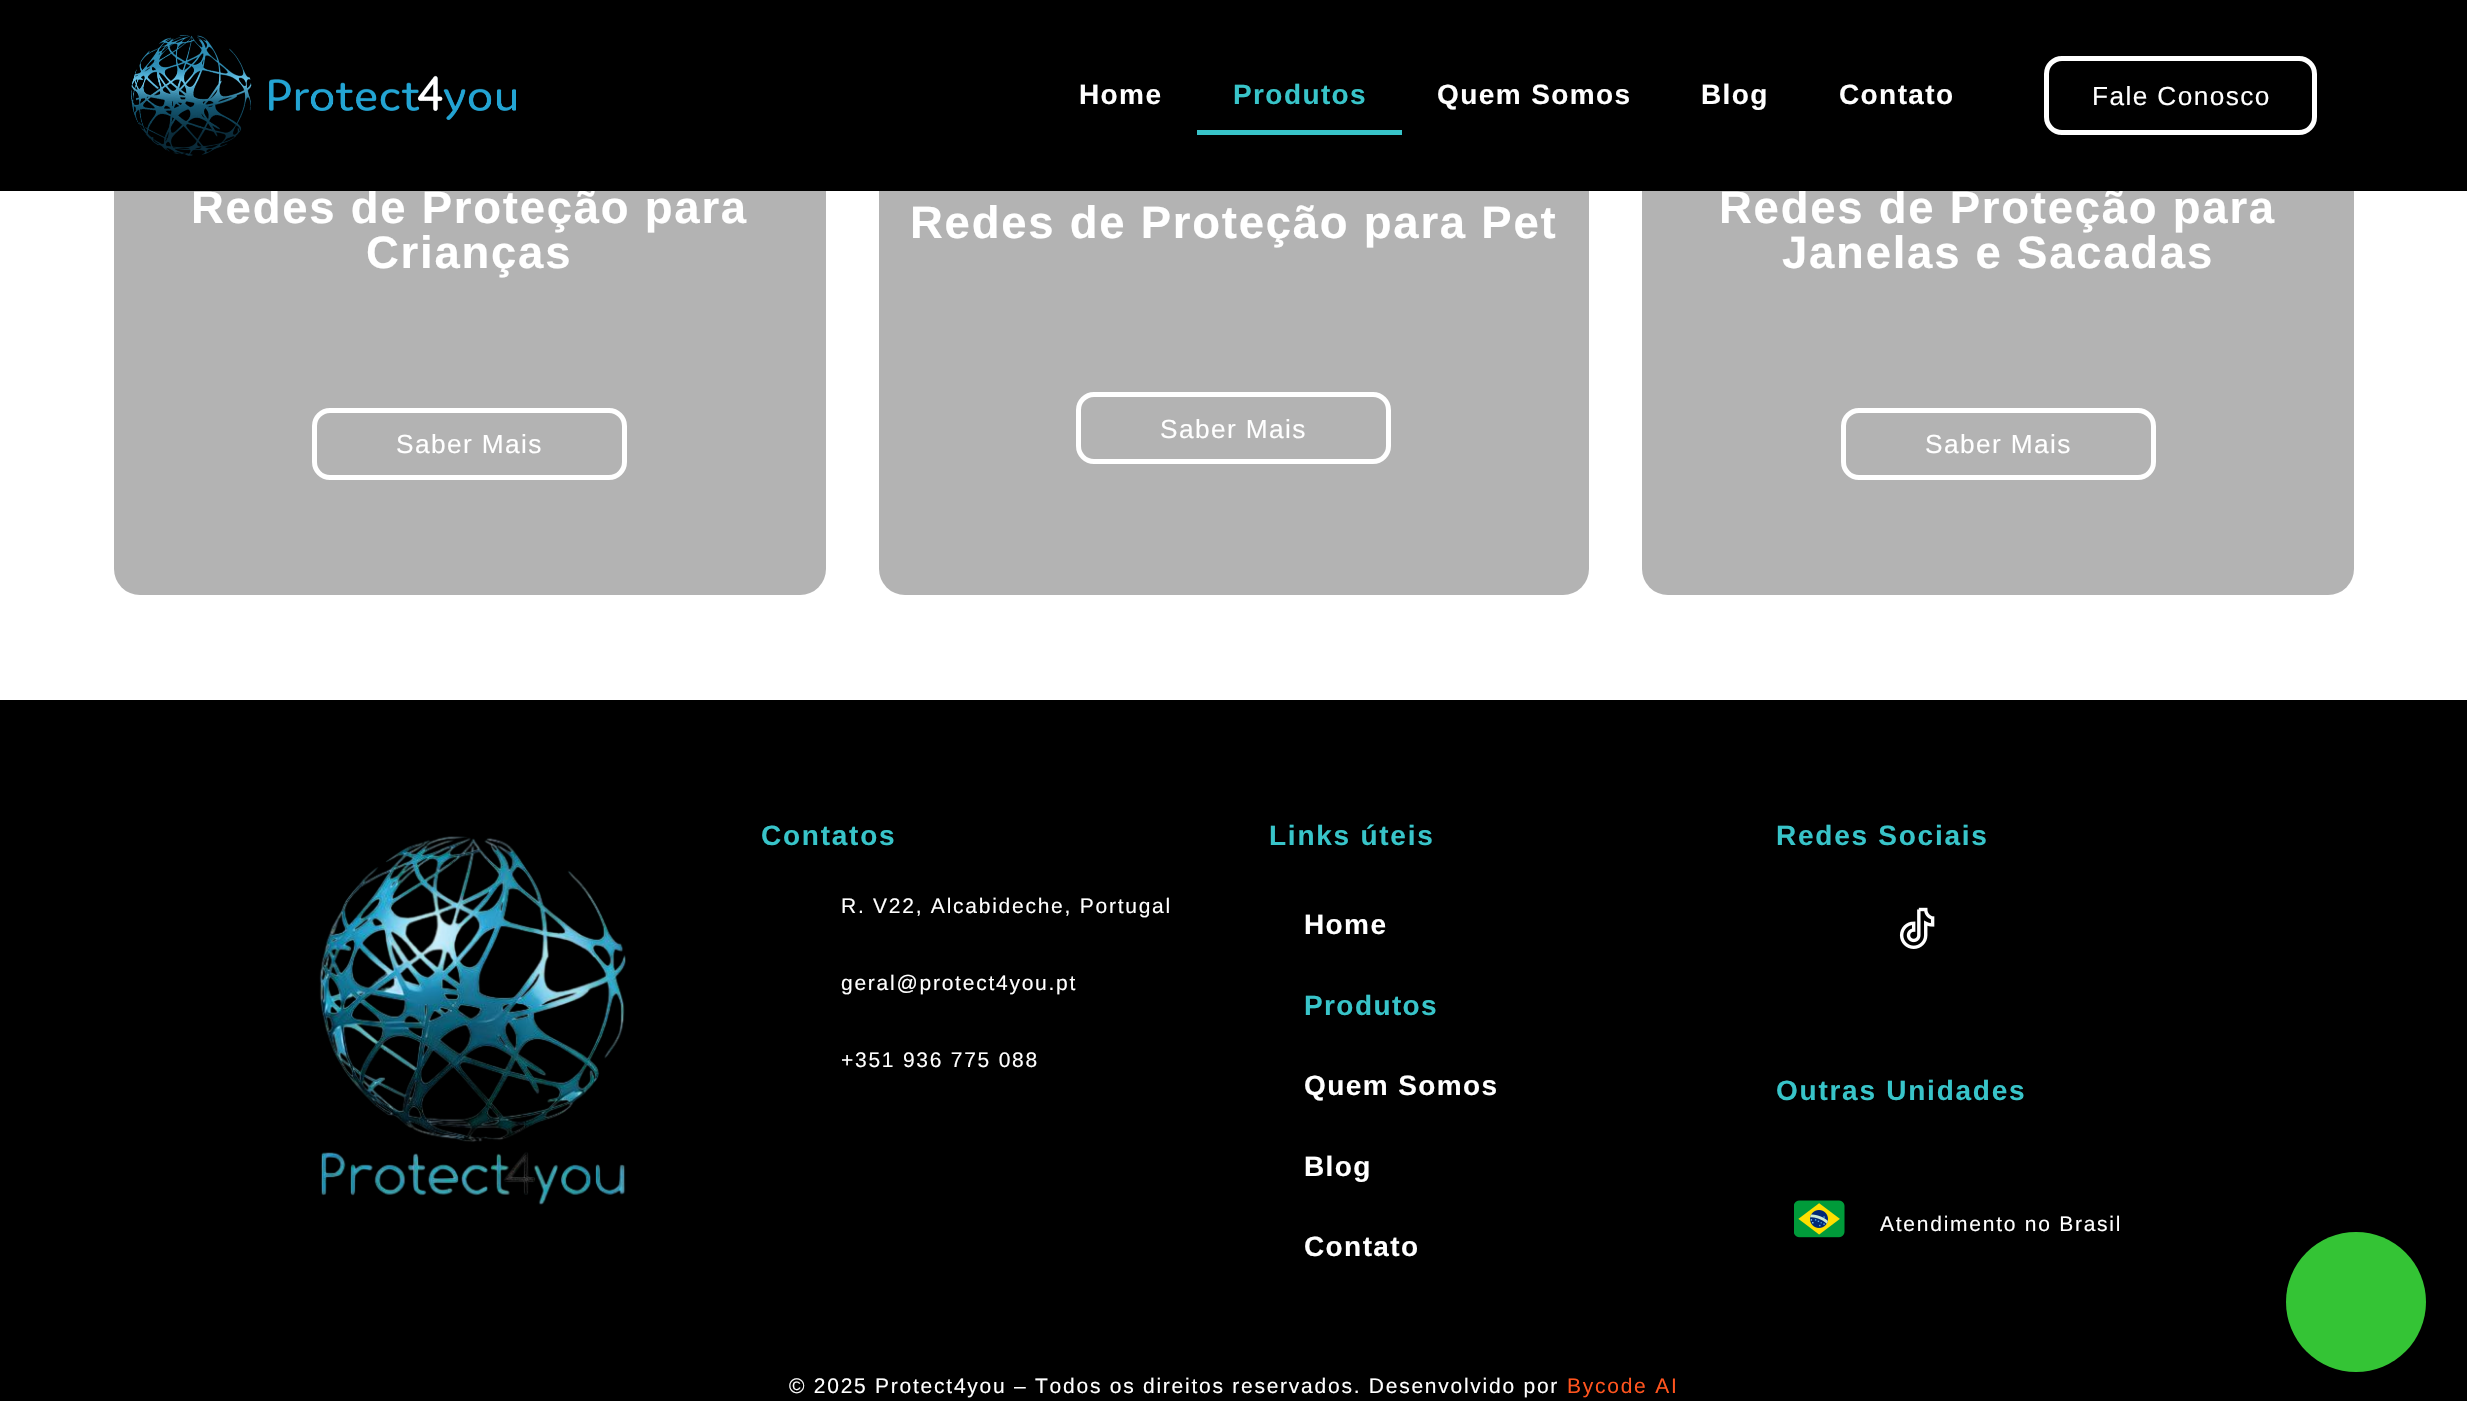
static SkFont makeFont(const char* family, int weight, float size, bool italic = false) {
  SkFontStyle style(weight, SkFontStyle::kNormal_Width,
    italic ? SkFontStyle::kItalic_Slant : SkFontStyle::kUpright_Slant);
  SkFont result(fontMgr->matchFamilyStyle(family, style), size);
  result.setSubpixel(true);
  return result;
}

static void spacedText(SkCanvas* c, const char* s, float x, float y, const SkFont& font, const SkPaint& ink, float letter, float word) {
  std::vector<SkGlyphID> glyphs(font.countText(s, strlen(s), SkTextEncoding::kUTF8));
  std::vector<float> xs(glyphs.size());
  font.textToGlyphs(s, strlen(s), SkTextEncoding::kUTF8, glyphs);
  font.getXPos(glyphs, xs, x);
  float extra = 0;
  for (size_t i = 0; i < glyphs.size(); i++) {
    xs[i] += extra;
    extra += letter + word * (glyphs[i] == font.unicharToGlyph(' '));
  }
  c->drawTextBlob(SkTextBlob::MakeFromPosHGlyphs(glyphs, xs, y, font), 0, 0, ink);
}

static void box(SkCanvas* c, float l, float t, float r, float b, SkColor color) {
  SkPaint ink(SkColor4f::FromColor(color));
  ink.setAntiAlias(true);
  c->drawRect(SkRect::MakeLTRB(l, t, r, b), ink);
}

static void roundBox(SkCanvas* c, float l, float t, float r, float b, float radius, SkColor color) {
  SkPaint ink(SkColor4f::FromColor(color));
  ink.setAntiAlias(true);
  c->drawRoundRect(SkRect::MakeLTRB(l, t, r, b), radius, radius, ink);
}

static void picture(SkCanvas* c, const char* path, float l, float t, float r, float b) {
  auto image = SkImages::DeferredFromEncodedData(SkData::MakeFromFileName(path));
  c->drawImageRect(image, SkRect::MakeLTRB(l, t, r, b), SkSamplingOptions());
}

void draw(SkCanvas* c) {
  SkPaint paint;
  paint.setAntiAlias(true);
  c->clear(0xffffffff);
  roundBox(c, 114, 70, 826, 595, 26, 0xffb3b3b3);
  SkFont face1 = makeFont("Liberation Sans", 700, 45.5f);
  paint.setColor(0xffffffff);
  spacedText(c, "Redes de Proteção para", 191, 223, face1, paint, 1.75f, 0);
  roundBox(c, 879, 70, 1589, 595, 26, 0xffb3b3b3);
  roundBox(c, 1642, 70, 2354, 595, 26, 0xffb3b3b3);
  spacedText(c, "Redes de Proteção para", 1719, 223, face1, paint, 1.75f, 0);
  box(c, 0, 0, 2467, 191, 0xff000000);
  picture(c, "img_01.png", 131, 35, 516, 156);
  SkFont face2 = makeFont("Liberation Sans", 700, 28);
  spacedText(c, "Home", 1079, 104, face2, paint, 1.4f, 0);
  paint.setColor(0xff38c4c9);
  spacedText(c, "Produtos", 1233, 104, face2, paint, 1.4f, 0);
  box(c, 1197, 130, 1402, 135, 0xff38c4c9);
  paint.setColor(0xffffffff);
  spacedText(c, "Quem Somos", 1437, 104, face2, paint, 1.4f, 0);
  spacedText(c, "Blog", 1701, 104, face2, paint, 1.4f, 0);
  spacedText(c, "Contato", 1839, 104, face2, paint, 1.4f, 0);
  paint.setStyle(SkPaint::kStroke_Style);
  paint.setStrokeWidth(5);
  c->drawRoundRect(SkRect::MakeLTRB(2046.5f, 58.5f, 2314.5f, 132.5f), 15.5f, 15.5f, paint);
  SkFont face3 = makeFont("Liberation Sans", 400, 26.25f);
  paint.setStyle(SkPaint::kFill_Style);
  spacedText(c, "Fale Conosco", 2092, 105, face3, paint, 1.4f, 0);
  spacedText(c, "Crianças", 366, 268, face1, paint, 1.75f, 0);
  paint.setStyle(SkPaint::kStroke_Style);
  c->drawRoundRect(SkRect::MakeLTRB(314.5f, 410.5f, 624.5f, 477.5f), 15.5f, 15.5f, paint);
  paint.setStyle(SkPaint::kFill_Style);
  spacedText(c, "Saber Mais", 396, 453, face3, paint, 1.4f, 0);
  spacedText(c, "Redes de Proteção para Pet", 910, 238, face1, paint, 1.75f, 0);
  paint.setStyle(SkPaint::kStroke_Style);
  c->drawRoundRect(SkRect::MakeLTRB(1078.5f, 394.5f, 1388.5f, 461.5f), 15.5f, 15.5f, paint);
  paint.setStyle(SkPaint::kFill_Style);
  spacedText(c, "Saber Mais", 1160, 438, face3, paint, 1.4f, 0);
  spacedText(c, "Janelas e Sacadas", 1782, 268, face1, paint, 1.75f, 0);
  paint.setStyle(SkPaint::kStroke_Style);
  c->drawRoundRect(SkRect::MakeLTRB(1843.5f, 410.5f, 2153.5f, 477.5f), 15.5f, 15.5f, paint);
  paint.setStyle(SkPaint::kFill_Style);
  spacedText(c, "Saber Mais", 1925, 453, face3, paint, 1.4f, 0);
  box(c, 0, 700, 2467, 1401, 0xff000000);
  picture(c, "img_02.png", 319, 836, 626, 1205);
  paint.setColor(0xff38c4c9);
  spacedText(c, "Contatos", 761, 845, face2, paint, 1.75f, 0);
  SkFont face4 = makeFont("Liberation Sans", 400, 21);
  paint.setColor(0xffffffff);
  spacedText(c, "R. V22, Alcabideche, Portugal", 841, 913, face4, paint, 1.75f, 0);
  spacedText(c, "geral@protect4you.pt", 841, 990, face4, paint, 1.75f, 0);
  spacedText(c, "+351 936 775 088", 841, 1067, face4, paint, 1.75f, 0);
  paint.setColor(0xff38c4c9);
  spacedText(c, "Links úteis", 1269, 845, face2, paint, 1.75f, 0);
  paint.setColor(0xffffffff);
  spacedText(c, "Home", 1304, 934, face2, paint, 1.4f, 0);
  paint.setColor(0xff38c4c9);
  spacedText(c, "Produtos", 1304, 1015, face2, paint, 1.4f, 0);
  paint.setColor(0xffffffff);
  spacedText(c, "Quem Somos", 1304, 1095, face2, paint, 1.4f, 0);
  spacedText(c, "Blog", 1304, 1176, face2, paint, 1.4f, 0);
  spacedText(c, "Contato", 1304, 1256, face2, paint, 1.4f, 0);
  paint.setColor(0xff38c4c9);
  spacedText(c, "Redes Sociais", 1776, 845, face2, paint, 1.75f, 0);
  picture(c, "img_03.png", 1899, 907, 1935, 949);
  spacedText(c, "Outras Unidades", 1776, 1100, face2, paint, 1.75f, 0);
  picture(c, "img_04.png", 1794, 1200, 1845, 1238);
  paint.setColor(0xffffffff);
  spacedText(c, "Atendimento no Brasil", 1880, 1231, face4, paint, 1.75f, 0);
  paint.setColor(0xff34c435);
  c->drawCircle(2356, 1302, 70, paint);
  paint.setColor(0xffffffff);
  spacedText(c, "© 2025 Protect4you – Todos os direitos reservados. Desenvolvido por", 789, 1393, face4, paint, 1.75f, 0);
  paint.setColor(0xffff541e);
  spacedText(c, "Bycode AI", 1567, 1393, face4, paint, 1.75f, 0);
}
